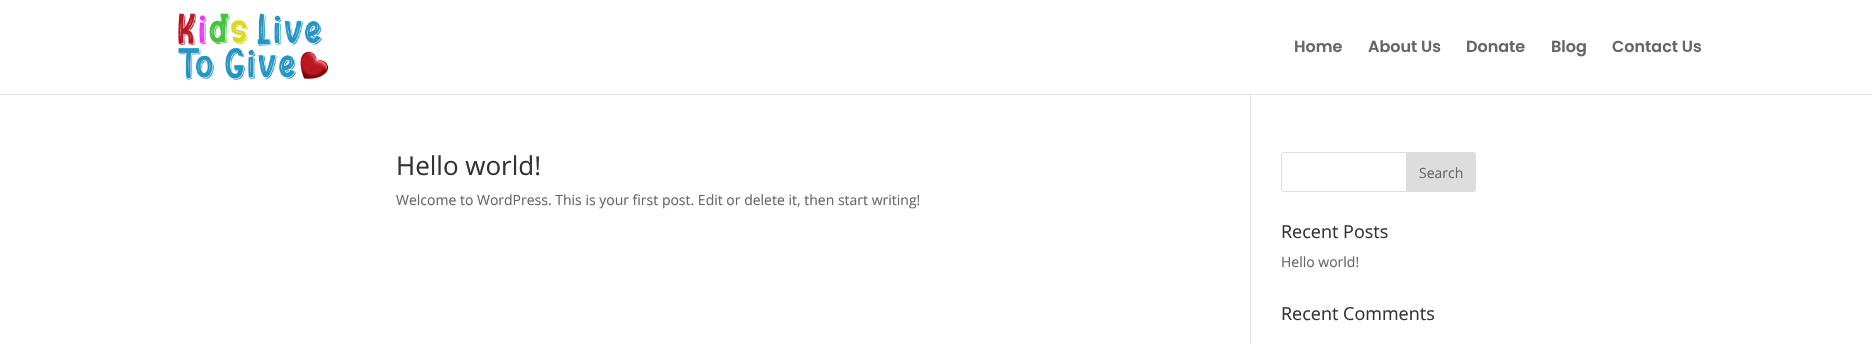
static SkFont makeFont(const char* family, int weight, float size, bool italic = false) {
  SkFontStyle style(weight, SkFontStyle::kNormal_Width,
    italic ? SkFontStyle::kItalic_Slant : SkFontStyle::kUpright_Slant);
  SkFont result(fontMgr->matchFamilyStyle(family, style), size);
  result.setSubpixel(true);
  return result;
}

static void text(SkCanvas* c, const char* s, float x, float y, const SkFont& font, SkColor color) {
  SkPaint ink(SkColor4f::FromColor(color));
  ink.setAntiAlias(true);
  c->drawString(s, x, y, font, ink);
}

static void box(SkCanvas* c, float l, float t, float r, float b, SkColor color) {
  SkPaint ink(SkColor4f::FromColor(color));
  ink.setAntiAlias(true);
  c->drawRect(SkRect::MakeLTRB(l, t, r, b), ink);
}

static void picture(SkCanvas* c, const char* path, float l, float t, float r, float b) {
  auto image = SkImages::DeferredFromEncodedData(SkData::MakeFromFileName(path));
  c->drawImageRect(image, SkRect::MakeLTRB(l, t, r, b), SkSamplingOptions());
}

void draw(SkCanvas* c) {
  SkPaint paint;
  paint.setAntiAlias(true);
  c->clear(0xffffffff);
  box(c, 0, 94, 1872, 95, 0xffe6e6e6);
  picture(c, "img_01.png", 178, 13, 329, 80);
  SkFont face1 = makeFont("Poppins", 600, 16);
  text(c, "Home", 1294, 52, face1, 0xff666666);
  text(c, "About Us", 1368, 52, face1, 0xff666666);
  text(c, "Donate", 1466, 52, face1, 0xff666666);
  text(c, "Blog", 1551, 52, face1, 0xff666666);
  text(c, "Contact Us", 1612, 52, face1, 0xff666666);
  box(c, 1250, 94, 1251, 344, 0xffe2e2e2);
  box(c, 1250, 94, 1251, 95, 0xffcbcbcb);
  SkFont face2 = makeFont("Open Sans", 400, 26);
  text(c, "Hello world!", 396, 175, face2, 0xff333333);
  SkFont face3 = makeFont("Open Sans", 400, 14);
  text(c, "Welcome to WordPress. This is your first post. Edit or delete it, then start writing!", 396, 205, face3, 0xff666666);
  paint.setStyle(SkPaint::kStroke_Style);
  paint.setStrokeWidth(1);
  paint.setColor(0xffdddddd);
  c->drawRoundRect(SkRect::MakeLTRB(1281.5f, 152.5f, 1475.5f, 191.5f), 2.5f, 2.5f, paint);
  paint.setStyle(SkPaint::kFill_Style);
  c->drawPath(SkPathBuilder().moveTo(1406.5f, 152.5f).lineTo(1473, 152.5f).cubicTo(1474.5f, 152.5f, 1475.5f, 153.5f, 1475.5f, 155).lineTo(1475.5f, 189).cubicTo(1475.5f, 190.5f, 1474.5f, 191.5f, 1473, 191.5f).lineTo(1406.5f, 191.5f).close().detach(), paint);
  paint.setStyle(SkPaint::kStroke_Style);
  c->drawPath(SkPathBuilder().moveTo(1406.5f, 152.5f).lineTo(1473, 152.5f).cubicTo(1474.5f, 152.5f, 1475.5f, 153.5f, 1475.5f, 155).lineTo(1475.5f, 189).cubicTo(1475.5f, 190.5f, 1474.5f, 191.5f, 1473, 191.5f).lineTo(1406.5f, 191.5f).close().detach(), paint);
  text(c, "Search", 1419, 178, face3, 0xff666666);
  SkFont face4 = makeFont("Open Sans", 400, 18);
  text(c, "Recent Posts", 1281, 238, face4, 0xff333333);
  text(c, "Hello world!", 1281, 267, face3, 0xff666666);
  text(c, "Recent Comments", 1281, 320, face4, 0xff333333);
}
